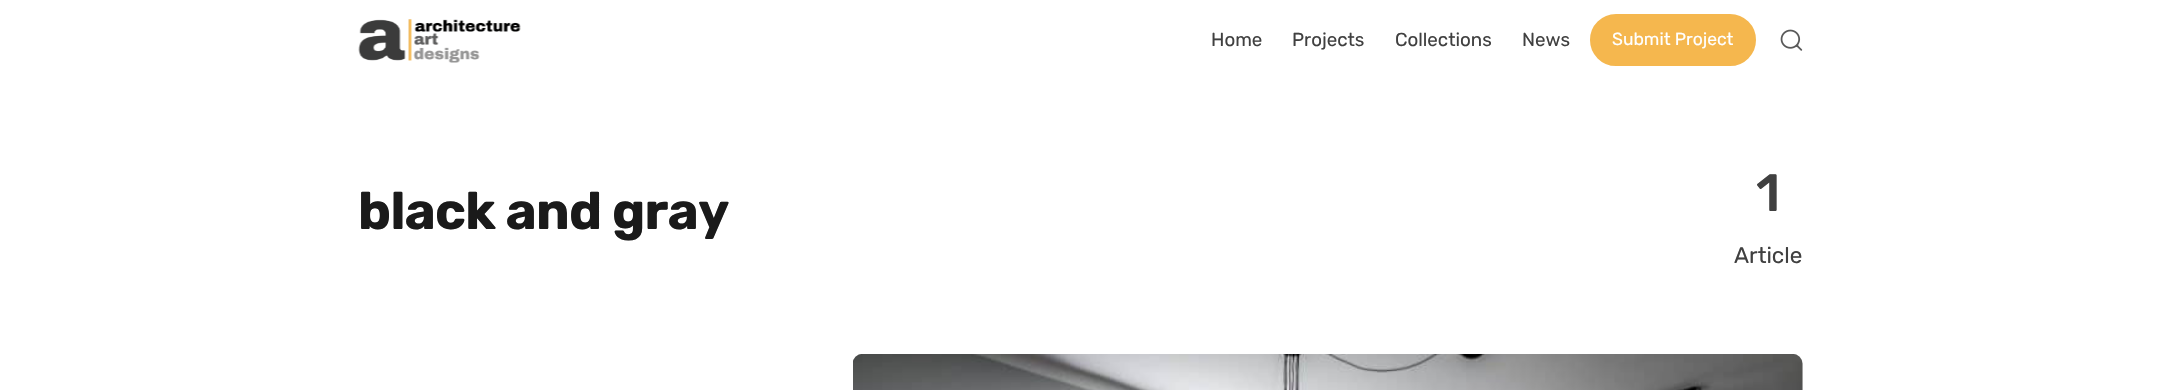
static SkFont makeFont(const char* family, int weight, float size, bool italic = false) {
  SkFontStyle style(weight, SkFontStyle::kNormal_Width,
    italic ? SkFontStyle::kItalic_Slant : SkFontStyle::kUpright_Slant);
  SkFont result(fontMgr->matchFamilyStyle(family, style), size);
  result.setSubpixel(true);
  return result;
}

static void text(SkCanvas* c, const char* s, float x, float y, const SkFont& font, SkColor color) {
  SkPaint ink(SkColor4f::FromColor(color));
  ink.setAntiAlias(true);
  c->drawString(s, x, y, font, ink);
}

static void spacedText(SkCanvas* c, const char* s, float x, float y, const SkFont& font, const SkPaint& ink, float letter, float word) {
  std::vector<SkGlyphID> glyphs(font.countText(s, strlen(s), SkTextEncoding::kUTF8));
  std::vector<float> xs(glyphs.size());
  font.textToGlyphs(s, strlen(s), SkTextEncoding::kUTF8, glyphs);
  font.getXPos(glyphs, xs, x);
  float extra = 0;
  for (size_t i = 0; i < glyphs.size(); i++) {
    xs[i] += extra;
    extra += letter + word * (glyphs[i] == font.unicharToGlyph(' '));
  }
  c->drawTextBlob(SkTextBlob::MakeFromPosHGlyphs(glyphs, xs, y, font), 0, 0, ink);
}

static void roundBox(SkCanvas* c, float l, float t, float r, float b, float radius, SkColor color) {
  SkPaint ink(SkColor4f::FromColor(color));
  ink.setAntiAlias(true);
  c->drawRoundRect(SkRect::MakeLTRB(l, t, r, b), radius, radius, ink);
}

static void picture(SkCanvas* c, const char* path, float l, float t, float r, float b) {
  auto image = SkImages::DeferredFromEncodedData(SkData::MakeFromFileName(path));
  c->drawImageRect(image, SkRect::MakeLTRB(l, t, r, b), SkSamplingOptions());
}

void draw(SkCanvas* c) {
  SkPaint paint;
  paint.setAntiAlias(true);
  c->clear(0xffffffff);
  picture(c, "img_01.png", 358, 19, 521, 63);
  SkFont face1 = makeFont("Rubik", 400, 18.75f);
  text(c, "Home", 1211, 46, face1, 0xff404040);
  text(c, "Projects", 1292, 46, face1, 0xff404040);
  text(c, "Collections", 1395, 46, face1, 0xff404040);
  text(c, "News", 1522, 46, face1, 0xff404040);
  paint.setColor(0xfff5b74e);
  c->drawRoundRect(SkRect::MakeLTRB(1591.5f, 15.5f, 1754.5f, 64.5f), 24.5f, 24.5f, paint);
  paint.setStyle(SkPaint::kStroke_Style);
  paint.setStrokeWidth(3);
  c->drawRoundRect(SkRect::MakeLTRB(1591.5f, 15.5f, 1754.5f, 64.5f), 24.5f, 24.5f, paint);
  SkFont face2 = makeFont("Rubik", 400, 17.5f);
  text(c, "Submit Project", 1612, 45, face2, 0xffffffff);
  picture(c, "img_02.png", 1780, 29, 1803, 51);
  SkFont face3 = makeFont("Rubik", 700, 52.5f);
  paint.setStyle(SkPaint::kFill_Style);
  paint.setColor(0xff1a1a1a);
  spacedText(c, "black and gray", 358, 229, face3, paint, -0.7f, 0);
  SkFont face4 = makeFont("Rubik", 500, 52.5f);
  text(c, "1", 1756, 211, face4, 0xff404040);
  SkFont face5 = makeFont("Rubik", 400, 22.5f);
  text(c, "Article", 1734, 263, face5, 0xff404040);
  roundBox(c, 853, 354, 1803, 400, 10, 0xfff0f0f0);
  picture(c, "img_03.png", 853, 354, 1803, 390);
}
